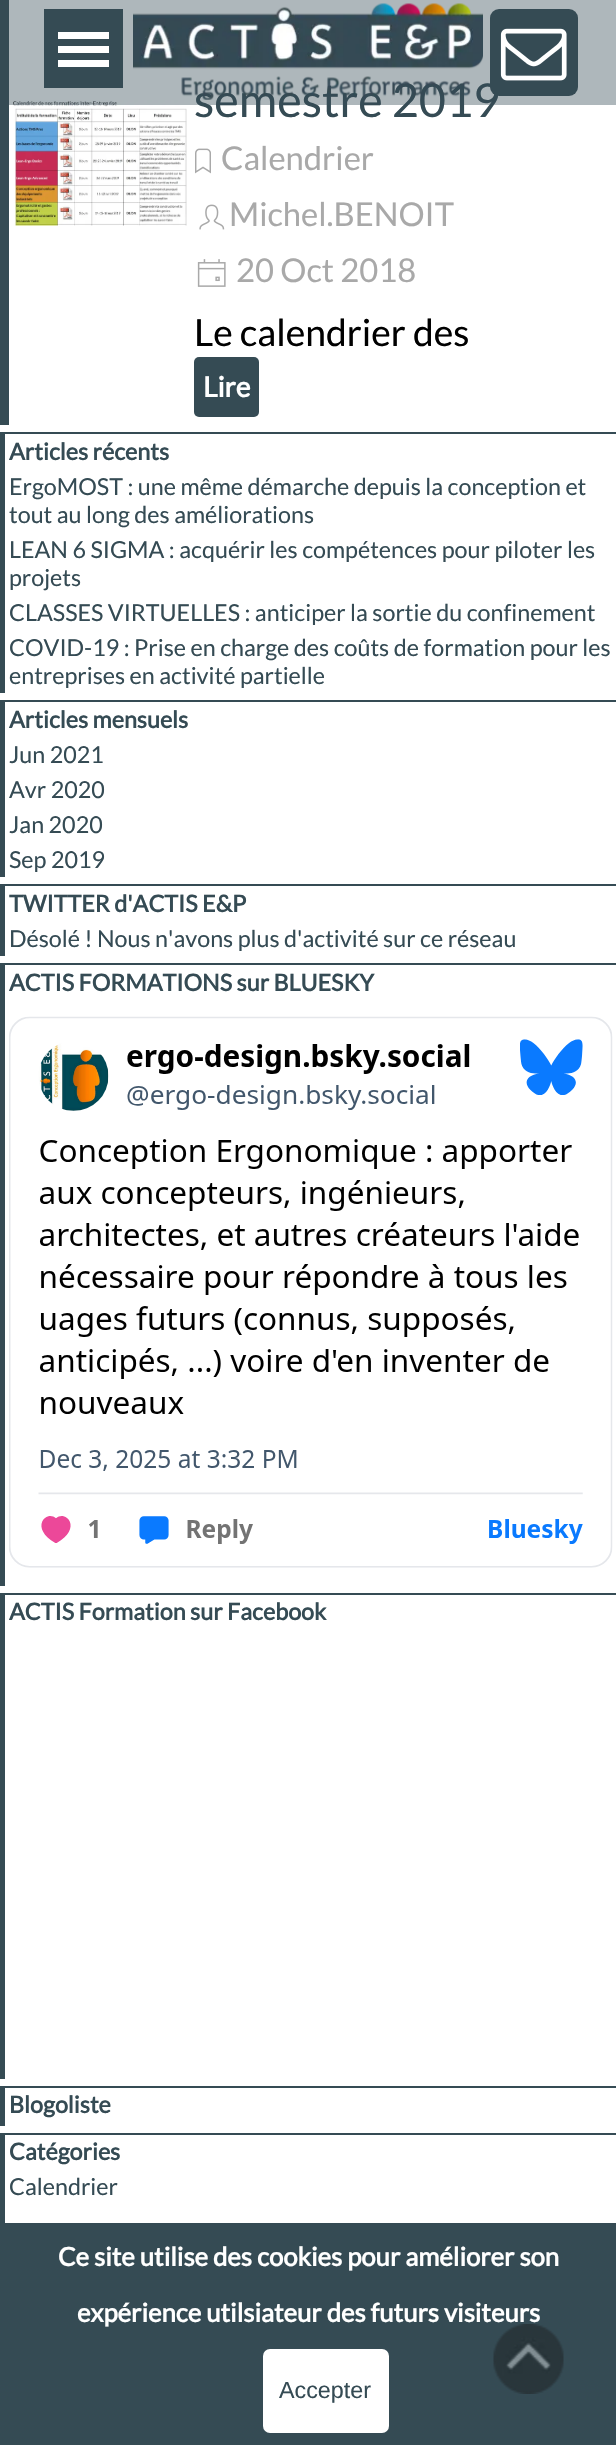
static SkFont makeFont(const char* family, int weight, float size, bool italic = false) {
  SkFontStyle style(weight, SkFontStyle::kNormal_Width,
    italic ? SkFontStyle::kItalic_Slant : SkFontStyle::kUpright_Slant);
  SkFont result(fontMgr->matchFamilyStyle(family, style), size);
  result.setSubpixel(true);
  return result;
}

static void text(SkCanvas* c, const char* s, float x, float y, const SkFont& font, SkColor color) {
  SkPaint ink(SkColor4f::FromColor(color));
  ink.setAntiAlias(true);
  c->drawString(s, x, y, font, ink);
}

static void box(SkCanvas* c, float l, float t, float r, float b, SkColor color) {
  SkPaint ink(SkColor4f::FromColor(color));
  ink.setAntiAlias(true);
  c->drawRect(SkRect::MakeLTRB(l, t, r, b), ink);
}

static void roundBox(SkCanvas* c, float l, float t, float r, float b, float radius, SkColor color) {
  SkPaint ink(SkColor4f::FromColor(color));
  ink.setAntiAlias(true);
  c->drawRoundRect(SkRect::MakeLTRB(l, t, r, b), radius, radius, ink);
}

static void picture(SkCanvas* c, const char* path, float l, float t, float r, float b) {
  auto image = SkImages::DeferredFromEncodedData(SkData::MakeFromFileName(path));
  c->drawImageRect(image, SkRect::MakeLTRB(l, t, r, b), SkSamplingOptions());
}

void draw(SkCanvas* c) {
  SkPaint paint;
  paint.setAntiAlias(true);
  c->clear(0xffffffff);
  picture(c, "img_03.png", 13, 100, 187, 226);
  SkFont face1 = makeFont("Lato", 400, 46.75f);
  text(c, "semestre 2019", 194, 117, face1, 0xff354b54);
  box(c, 9, 0, 616, 105, 0x66354b54);
  box(c, 44, 9, 123, 88, 0xff354b54);
  box(c, 58, 32, 109, 39, 0xffffffff);
  box(c, 58, 46, 109, 53, 0xffffffff);
  box(c, 58, 60, 109, 67, 0xffffffff);
  picture(c, "img_01.png", 133, 3, 483, 100);
  roundBox(c, 490, 9, 578, 96, 9, 0xff354b54);
  picture(c, "img_02.png", 500, 28, 567, 81);
  box(c, 0, 0, 9, 425, 0xff354b54);
  picture(c, "img_04.png", 195, 148, 211, 174);
  SkFont face2 = makeFont("Lato", 400, 32.75f);
  text(c, "Calendrier", 221, 170, face2, 0xffa9a9a9);
  picture(c, "img_05.png", 199, 204, 225, 230);
  text(c, "Michel.BENOIT", 229, 226, face2, 0xffa9a9a9);
  picture(c, "img_06.png", 197, 259, 226, 287);
  text(c, "20 Oct 2018", 236, 282, face2, 0xffa9a9a9);
  SkFont face3 = makeFont("Lato", 400, 37.25f);
  text(c, "Le calendrier des", 194, 346, face3, 0xff000000);
  roundBox(c, 194, 357, 259, 417, 5, 0xff354b54);
  SkFont face4 = makeFont("Lato", 700, 28);
  text(c, "Lire", 203, 397, face4, 0xffffffff);
  box(c, 0, 432, 616, 434, 0xff354b54);
  box(c, 0, 432, 5, 693, 0xff354b54);
  SkFont face5 = makeFont("Lato", 700, 23.3f);
  text(c, "Articles récents", 9, 460, face5, 0xff354b54);
  SkFont face6 = makeFont("Lato", 400, 23.3f);
  text(c, "ErgoMOST : une même démarche depuis la conception et", 9, 495, face6, 0xff354b54);
  text(c, "tout au long des améliorations", 9, 523, face6, 0xff354b54);
  text(c, "LEAN 6 SIGMA : acquérir les compétences pour piloter les", 9, 558, face6, 0xff354b54);
  text(c, "projets", 9, 586, face6, 0xff354b54);
  text(c, "CLASSES VIRTUELLES : anticiper la sortie du confinement", 9, 621, face6, 0xff354b54);
  text(c, "COVID-19 : Prise en charge des coûts de formation pour les", 9, 656, face6, 0xff354b54);
  text(c, "entreprises en activité partielle", 9, 684, face6, 0xff354b54);
  box(c, 0, 700, 616, 702, 0xff354b54);
  box(c, 0, 700, 5, 877, 0xff354b54);
  text(c, "Articles mensuels", 9, 728, face5, 0xff354b54);
  text(c, "Jun 2021", 9, 763, face6, 0xff354b54);
  text(c, "Avr 2020", 9, 798, face6, 0xff354b54);
  text(c, "Jan 2020", 9, 833, face6, 0xff354b54);
  text(c, "Sep 2019", 9, 868, face6, 0xff354b54);
  box(c, 0, 884, 616, 886, 0xff354b54);
  box(c, 0, 884, 5, 956, 0xff354b54);
  text(c, "TWITTER d'ACTIS E&P", 9, 912, face5, 0xff354b54);
  text(c, "Désolé ! Nous n'avons plus d'activité sur ce réseau", 9, 947, face6, 0xff354b54);
  box(c, 0, 963, 616, 965, 0xff354b54);
  box(c, 0, 963, 5, 1586, 0xff354b54);
  text(c, "ACTIS FORMATIONS sur BLUESKY", 9, 991, face5, 0xff354b54);
  picture(c, "img_07.png", 9, 1016, 613, 1568);
  box(c, 0, 1593, 616, 1595, 0xff354b54);
  box(c, 0, 1593, 5, 2079, 0xff354b54);
  text(c, "ACTIS Formation sur Facebook", 9, 1620, face5, 0xff354b54);
  box(c, 0, 2086, 616, 2088, 0xff354b54);
  box(c, 0, 2086, 5, 2126, 0xff354b54);
  text(c, "Blogoliste", 9, 2113, face5, 0xff354b54);
  box(c, 0, 2133, 616, 2135, 0xff354b54);
  box(c, 0, 2133, 5, 2223, 0xff354b54);
  text(c, "Catégories", 9, 2160, face5, 0xff354b54);
  text(c, "Calendrier", 9, 2195, face6, 0xff354b54);
  box(c, 0, 2223, 616, 2445, 0xff354b54);
  SkFont face7 = makeFont("Lato", 700, 25.7f);
  text(c, "Ce site utilise des cookies pour améliorer son", 58, 2266, face7, 0xffffffff);
  text(c, "expérience utilsiateur des futurs visiteurs", 77, 2322, face7, 0xffffffff);
  roundBox(c, 263, 2349, 389, 2433, 7, 0xffffffff);
  SkFont face8 = makeFont("Liberation Sans", 400, 23.3f);
  text(c, "Accepter", 279, 2398, face8, 0xff354b54);
  picture(c, "img_08.png", 493, 2324, 564, 2394);
}
